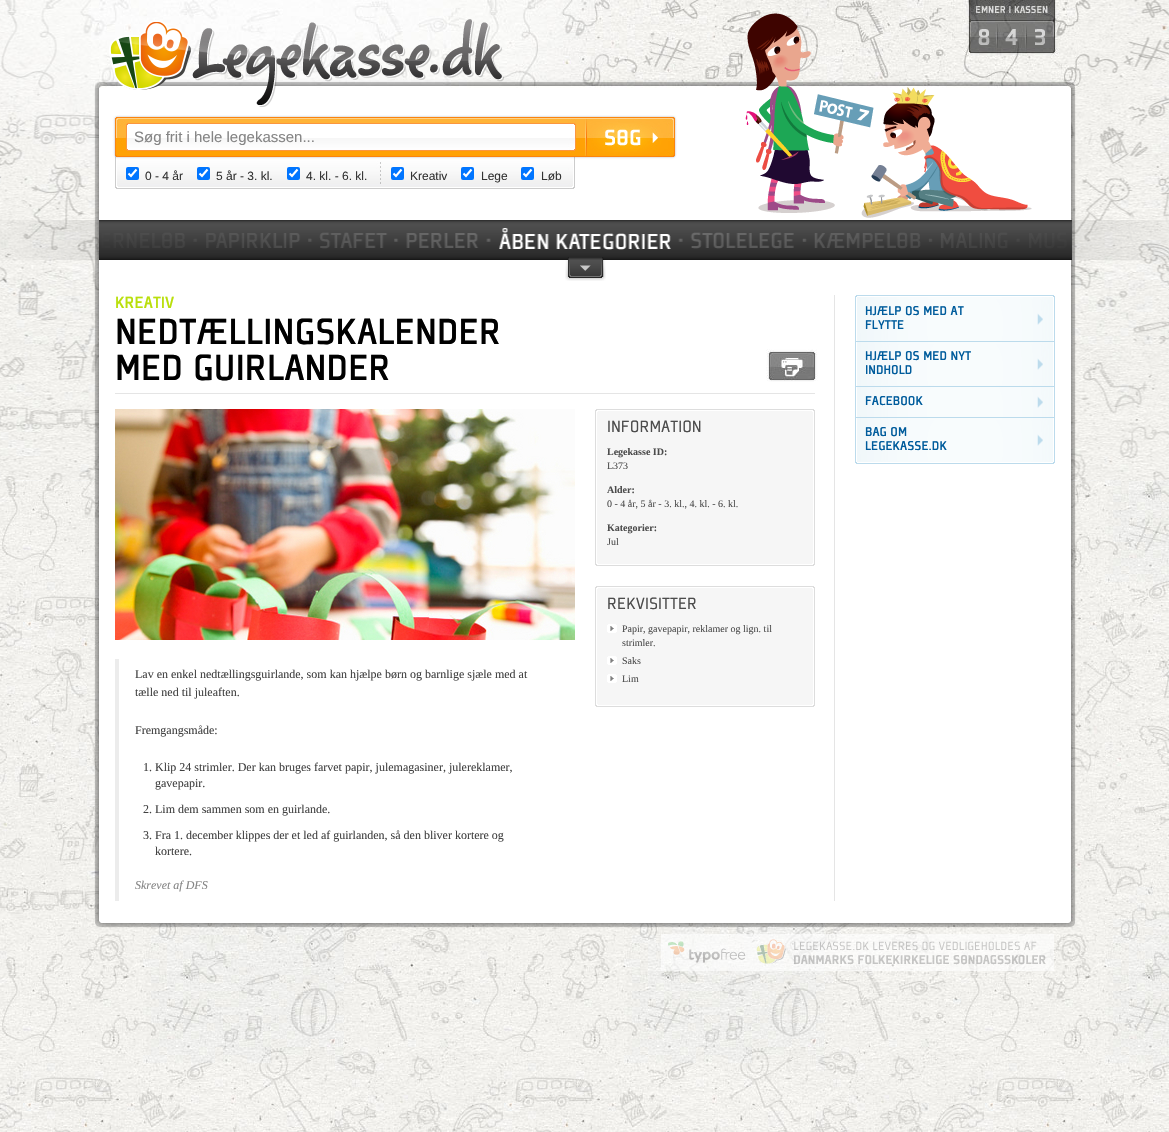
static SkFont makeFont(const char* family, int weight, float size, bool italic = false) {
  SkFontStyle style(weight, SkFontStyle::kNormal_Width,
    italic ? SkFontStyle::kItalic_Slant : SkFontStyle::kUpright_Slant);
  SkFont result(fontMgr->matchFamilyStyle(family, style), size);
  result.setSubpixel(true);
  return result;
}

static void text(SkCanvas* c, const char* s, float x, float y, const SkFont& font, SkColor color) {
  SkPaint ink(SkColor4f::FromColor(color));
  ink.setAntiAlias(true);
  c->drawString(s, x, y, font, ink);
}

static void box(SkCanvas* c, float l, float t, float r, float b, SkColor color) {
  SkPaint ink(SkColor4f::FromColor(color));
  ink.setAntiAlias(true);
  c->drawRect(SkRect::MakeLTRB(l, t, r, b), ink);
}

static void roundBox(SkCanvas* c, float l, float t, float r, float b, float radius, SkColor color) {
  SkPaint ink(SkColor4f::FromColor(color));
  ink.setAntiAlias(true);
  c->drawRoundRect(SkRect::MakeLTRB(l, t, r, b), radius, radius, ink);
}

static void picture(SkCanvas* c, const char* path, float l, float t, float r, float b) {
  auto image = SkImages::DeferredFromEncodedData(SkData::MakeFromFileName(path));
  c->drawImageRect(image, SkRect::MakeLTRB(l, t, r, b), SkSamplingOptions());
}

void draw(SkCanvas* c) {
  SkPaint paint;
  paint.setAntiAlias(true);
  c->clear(0xffffffff);
  picture(c, "img_01.png", 0, 481, 1169, 1132);
  picture(c, "img_02.png", 0, 0, 1169, 481);
  picture(c, "img_03.png", 94, 88, 1076, 921);
  picture(c, "img_04.png", 91, 0, 1079, 88);
  picture(c, "img_05.png", 109, 19, 504, 107);
  picture(c, "img_06.png", 745, 13, 1032, 218);
  picture(c, "img_07.png", 978, 29, 990, 45);
  picture(c, "img_08.png", 1005, 29, 1018, 45);
  picture(c, "img_09.png", 1035, 29, 1045, 45);
  picture(c, "img_10.png", 112, 115, 677, 189);
  SkFont face1 = makeFont("Liberation Sans", 400, 15);
  text(c, "Søg frit i hele legekassen...", 134, 142, face1, 0xff858585);
  picture(c, "img_11.png", 586, 117, 675, 157);
  roundBox(c, 126, 167, 139, 180, 2, 0xff0075ff);
  paint.setStyle(SkPaint::kStroke_Style);
  paint.setStrokeWidth(2.1f);
  paint.setColor(0xffffffff);
  c->drawPath(SkPathBuilder().moveTo(128.5f, 173.5f).lineTo(131, 176).lineTo(136.5f, 169.5f).detach(), paint);
  SkFont face2 = makeFont("Liberation Sans", 400, 12);
  text(c, "0 - 4 år", 145, 180, face2, 0xff333333);
  roundBox(c, 197, 167, 210, 180, 2, 0xff0075ff);
  c->drawPath(SkPathBuilder().moveTo(199.5f, 173.5f).lineTo(202, 176).lineTo(207.5f, 169.5f).detach(), paint);
  text(c, "5 år - 3. kl.", 216, 180, face2, 0xff333333);
  roundBox(c, 287, 167, 300, 180, 2, 0xff0075ff);
  c->drawPath(SkPathBuilder().moveTo(289.5f, 173.5f).lineTo(292, 176).lineTo(297.5f, 169.5f).detach(), paint);
  text(c, "4. kl. - 6. kl.", 306, 180, face2, 0xff333333);
  roundBox(c, 391, 167, 404, 180, 2, 0xff0075ff);
  c->drawPath(SkPathBuilder().moveTo(393.5f, 173.5f).lineTo(396, 176).lineTo(401.5f, 169.5f).detach(), paint);
  text(c, "Kreativ", 410, 180, face2, 0xff333333);
  roundBox(c, 461, 167, 474, 180, 2, 0xff0075ff);
  c->drawPath(SkPathBuilder().moveTo(463.5f, 173.5f).lineTo(466, 176).lineTo(471.5f, 169.5f).detach(), paint);
  text(c, "Lege", 481, 180, face2, 0xff333333);
  roundBox(c, 521, 167, 534, 180, 2, 0xff0075ff);
  c->drawPath(SkPathBuilder().moveTo(523.5f, 173.5f).lineTo(526, 176).lineTo(531.5f, 169.5f).detach(), paint);
  text(c, "Løb", 541, 180, face2, 0xff333333);
  picture(c, "img_12.png", 0, 220, 1169, 260);
  picture(c, "img_13.png", 99, 220, 1072, 260);
  picture(c, "img_14.png", 565, 257, 606, 281);
  box(c, 834, 295, 835, 901, 0xffe5e5e5);
  box(c, 115, 393, 815, 394, 0xffe5e5e5);
  SkFont face3 = makeFont("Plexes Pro", 500, 18);
  text(c, "KREATIV", 115, 308, face3, 0xffb9df0b);
  SkFont face4 = makeFont("Plexes Pro", 500, 40);
  text(c, "NEDTÆLLINGSKALENDER", 115, 344, face4, 0xff000000);
  text(c, "MED GUIRLANDER", 115, 380, face4, 0xff000000);
  picture(c, "img_15.png", 766, 349, 818, 382);
  picture(c, "img_16.png", 595, 412, 815, 563);
  picture(c, "img_17.png", 595, 409, 815, 412);
  SkFont face5 = makeFont("Plexes Pro", 400, 18);
  text(c, "INFORMATION", 607, 432, face5, 0xff4c4c4c);
  SkFont face6 = makeFont("Liberation Serif", 700, 10);
  text(c, "Legekasse ID:", 607, 455, face6, 0xff4c4c4c);
  SkFont face7 = makeFont("Liberation Serif", 400, 10);
  text(c, "L373", 607, 469, face7, 0xff4c4c4c);
  text(c, "Alder:", 607, 493, face6, 0xff4c4c4c);
  text(c, "0 - 4 år, 5 år - 3. kl., 4. kl. - 6. kl.", 607, 507, face7, 0xff4c4c4c);
  text(c, "Kategorier:", 607, 531, face6, 0xff4c4c4c);
  text(c, "Jul", 607, 545, face7, 0xff4c4c4c);
  picture(c, "img_18.png", 595, 563, 815, 566);
  picture(c, "img_19.png", 595, 589, 815, 704);
  picture(c, "img_17.png", 595, 586, 815, 589);
  text(c, "REKVISITTER", 607, 609, face5, 0xff4c4c4c);
  picture(c, "img_20.png", 607, 624, 617, 633);
  text(c, "Papir, gavepapir, reklamer og lign. til", 622, 632, face7, 0xff4c4c4c);
  text(c, "strimler.", 622, 646, face7, 0xff4c4c4c);
  picture(c, "img_20.png", 607, 656, 617, 665);
  text(c, "Saks", 622, 664, face7, 0xff4c4c4c);
  picture(c, "img_20.png", 607, 674, 617, 683);
  text(c, "Lim", 622, 682, face7, 0xff4c4c4c);
  picture(c, "img_18.png", 595, 704, 815, 707);
  picture(c, "img_21.png", 115, 409, 575, 640);
  box(c, 115, 659, 119, 901, 0xffececec);
  SkFont face8 = makeFont("Liberation Serif", 400, 12);
  text(c, "Lav en enkel nedtællingsguirlande, som kan hjælpe børn og barnlige sjæle med at", 135, 678, face8, 0xff404040);
  text(c, "tælle ned til juleaften.", 135, 696, face8, 0xff404040);
  text(c, "Fremgangsmåde:", 135, 734, face8, 0xff404040);
  text(c, "1. Klip 24 strimler. Der kan bruges farvet papir, julemagasiner, julereklamer,", 143, 771, face8, 0xff404040);
  text(c, "gavepapir.", 155, 787, face8, 0xff404040);
  text(c, "2. Lim dem sammen som en guirlande.", 143, 813, face8, 0xff404040);
  text(c, "3. Fra 1. december klippes der et led af guirlanden, så den bliver kortere og", 143, 839, face8, 0xff404040);
  text(c, "kortere.", 155, 855, face8, 0xff404040);
  SkFont face9 = makeFont("Liberation Serif", 400, 12, true);
  text(c, "Skrevet af DFS", 135, 889, face9, 0xff858585);
  picture(c, "img_22.png", 855, 462, 1055, 464);
  picture(c, "img_23.png", 855, 295, 1055, 297);
  picture(c, "img_24.png", 855, 297, 1055, 341);
  SkFont face10 = makeFont("Plexes Pro", 500, 14);
  text(c, "HJÆLP OS MED AT", 865, 315, face10, 0xff005c9c);
  text(c, "FLYTTE", 865, 329, face10, 0xff005c9c);
  picture(c, "img_25.png", 855, 341, 1055, 342);
  picture(c, "img_24.png", 855, 342, 1055, 386);
  text(c, "HJÆLP OS MED NYT", 865, 360, face10, 0xff005c9c);
  text(c, "INDHOLD", 865, 374, face10, 0xff005c9c);
  picture(c, "img_25.png", 855, 386, 1055, 387);
  picture(c, "img_26.png", 855, 387, 1055, 417);
  text(c, "FACEBOOK", 865, 405, face10, 0xff005c9c);
  picture(c, "img_25.png", 855, 417, 1055, 418);
  picture(c, "img_24.png", 855, 418, 1055, 462);
  text(c, "BAG OM", 865, 436, face10, 0xff005c9c);
  text(c, "LEGEKASSE.DK", 865, 450, face10, 0xff005c9c);
  picture(c, "img_27.png", 95, 921, 1075, 928);
  box(c, 661, 934, 1054, 971, 0x99ffffff);
  picture(c, "img_28.png", 668, 941, 746, 963);
  picture(c, "img_29.png", 756, 939, 1046, 965);
}
